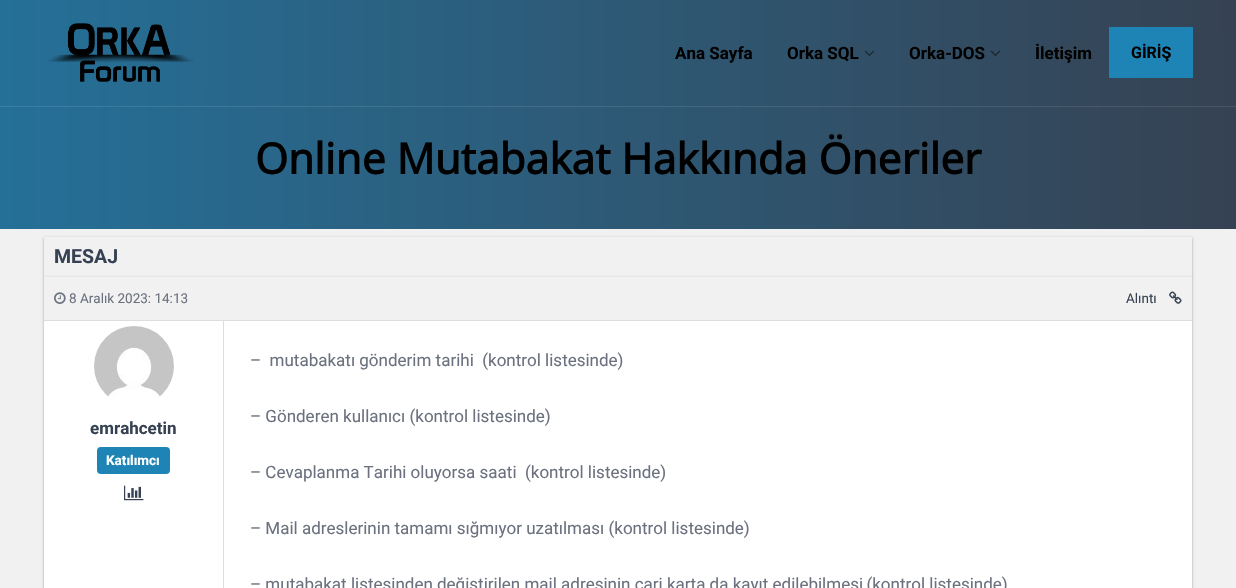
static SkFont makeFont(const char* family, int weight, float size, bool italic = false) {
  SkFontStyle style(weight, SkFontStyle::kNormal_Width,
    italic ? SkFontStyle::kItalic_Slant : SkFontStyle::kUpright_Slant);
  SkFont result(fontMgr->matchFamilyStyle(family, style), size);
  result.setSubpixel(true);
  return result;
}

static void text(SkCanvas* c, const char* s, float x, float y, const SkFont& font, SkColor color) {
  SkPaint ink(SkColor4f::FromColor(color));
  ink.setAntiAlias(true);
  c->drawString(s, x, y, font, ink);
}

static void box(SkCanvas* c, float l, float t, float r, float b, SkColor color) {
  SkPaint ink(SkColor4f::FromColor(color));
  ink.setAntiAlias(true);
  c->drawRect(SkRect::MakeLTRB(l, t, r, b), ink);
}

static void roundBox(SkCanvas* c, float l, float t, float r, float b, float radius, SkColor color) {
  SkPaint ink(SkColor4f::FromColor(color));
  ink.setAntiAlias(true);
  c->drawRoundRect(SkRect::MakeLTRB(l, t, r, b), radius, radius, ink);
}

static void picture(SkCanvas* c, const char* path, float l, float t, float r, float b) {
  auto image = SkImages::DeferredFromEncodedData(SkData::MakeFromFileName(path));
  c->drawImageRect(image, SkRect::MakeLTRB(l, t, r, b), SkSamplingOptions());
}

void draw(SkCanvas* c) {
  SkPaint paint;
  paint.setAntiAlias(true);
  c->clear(0xfff1f1f1);
  {
    const SkColor colors[] = {0xff257098, 0xff364253};
    const float stops[] = {0, 1};
    const SkPoint ends[] = {{0, 115}, {1236, 114}};
    paint.setShader(SkGradientShader::MakeLinear(ends, colors, stops, 2, SkTileMode::kClamp));
    paint.setAlpha(255);
  }
  c->drawRect(SkRect::MakeLTRB(0, 0, 1236, 229), paint);
  {
    const SkColor colors[] = {0xff3b7ea2, 0xff4a5564};
    const float stops[] = {0, 1};
    const SkPoint ends[] = {{0, 115}, {1236, 114}};
    paint.setShader(SkGradientShader::MakeLinear(ends, colors, stops, 2, SkTileMode::kClamp));
    paint.setAlpha(255);
  }
  c->drawRect(SkRect::MakeLTRB(0, 106, 1236, 107), paint);
  picture(c, "img_01.png", 47, 23, 194, 82);
  SkFont face1 = makeFont("Roboto", 700, 17);
  text(c, "Ana Sayfa", 675, 59, face1, 0xff000000);
  text(c, "Orka SQL", 787, 59, face1, 0xff000000);
  picture(c, "img_02.png", 864, 50, 875, 56);
  text(c, "Orka-DOS", 909, 59, face1, 0xff000000);
  picture(c, "img_03.png", 990, 50, 1000, 56);
  text(c, "İletişim", 1035, 59, face1, 0xff000000);
  box(c, 1109, 27, 1193, 78, 0xff1d84b5);
  SkFont face2 = makeFont("Roboto", 700, 16);
  text(c, "GİRİŞ", 1131, 58, face2, 0xff000000);
  SkFont face3 = makeFont("Open Sans", 700, 42.5f);
  text(c, "Online Mutabakat Hakkında Öneriler", 255, 174, face3, 0xff000000);
  c->save();
  c->clipPath(SkPathBuilder(SkPathFillType::kEvenOdd).moveTo(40, 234).lineTo(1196, 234).lineTo(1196, 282).lineTo(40, 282).close().moveTo(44, 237).lineTo(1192, 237).lineTo(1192, 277).lineTo(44, 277).close().detach(), true);
  paint.setShader(nullptr);
  paint.setColor(0x3d000000);
  paint.setMaskFilter(SkMaskFilter::MakeBlur(kNormal_SkBlurStyle, 1));
  c->drawRect(SkRect::MakeLTRB(44, 238, 1192, 278), paint);
  paint.setMaskFilter(nullptr);
  c->restore();
  c->save();
  c->clipPath(SkPathBuilder(SkPathFillType::kEvenOdd).moveTo(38, 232).lineTo(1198, 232).lineTo(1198, 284).lineTo(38, 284).close().moveTo(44, 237).lineTo(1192, 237).lineTo(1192, 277).lineTo(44, 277).close().detach(), true);
  paint.setColor(0x1f000000);
  paint.setMaskFilter(SkMaskFilter::MakeBlur(kNormal_SkBlurStyle, 1.5f));
  c->drawRect(SkRect::MakeLTRB(44, 238, 1192, 278), paint);
  paint.setMaskFilter(nullptr);
  c->restore();
  SkFont face4 = makeFont("Roboto", 700, 19.5f);
  text(c, "MESAJ", 54, 263, face4, 0xff364253);
  paint.setColor(0x3d000000);
  paint.setMaskFilter(SkMaskFilter::MakeBlur(kNormal_SkBlurStyle, 1));
  c->drawRect(SkRect::MakeLTRB(44, 278, 1192, 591), paint);
  paint.setMaskFilter(nullptr);
  paint.setColor(0x1f000000);
  paint.setMaskFilter(SkMaskFilter::MakeBlur(kNormal_SkBlurStyle, 1.5f));
  c->drawRect(SkRect::MakeLTRB(44, 278, 1192, 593), paint);
  paint.setMaskFilter(nullptr);
  box(c, 44, 321, 1192, 588, 0xffffffff);
  box(c, 44, 277, 1192, 320, 0xfff1f1f1);
  box(c, 44, 320, 1192, 321, 0xffdddddd);
  picture(c, "img_04.png", 54, 292, 66, 304);
  SkFont face5 = makeFont("Roboto", 400, 13.5f);
  text(c, "8 Aralık 2023: 14:13", 69, 303, face5, 0xff6b717e);
  text(c, "Alıntı", 1126, 303, face5, 0xff364253);
  picture(c, "img_05.png", 1169, 291, 1182, 304);
  box(c, 223, 321, 224, 588, 0xffdddddd);
  picture(c, "img_06.png", 94, 326, 174, 397);
  text(c, "emrahcetin", 90, 434, face1, 0xff364253);
  roundBox(c, 97, 447, 170, 474, 4, 0xff1d84b5);
  SkFont face6 = makeFont("Roboto", 700, 13.5f);
  text(c, "Katılımcı", 106, 465, face6, 0xffffffff);
  picture(c, "img_07.png", 124, 485, 144, 501);
  SkFont face7 = makeFont("Roboto", 400, 17);
  text(c, "–  mutabakatı gönderim tarihi  (kontrol listesinde)", 250, 366, face7, 0xff6b717e);
  text(c, "– Gönderen kullanıcı (kontrol listesinde)", 250, 422, face7, 0xff6b717e);
  text(c, "– Cevaplanma Tarihi oluyorsa saati  (kontrol listesinde)", 250, 478, face7, 0xff6b717e);
  text(c, "– Mail adreslerinin tamamı sığmıyor uzatılması (kontrol listesinde)", 250, 534, face7, 0xff6b717e);
  text(c, "– mutabakat listesinden değiştirilen mail adresinin cari karta da kayıt edilebilmesi,(kontrol listesinde)", 250, 590, face7, 0xff6b717e);
}
